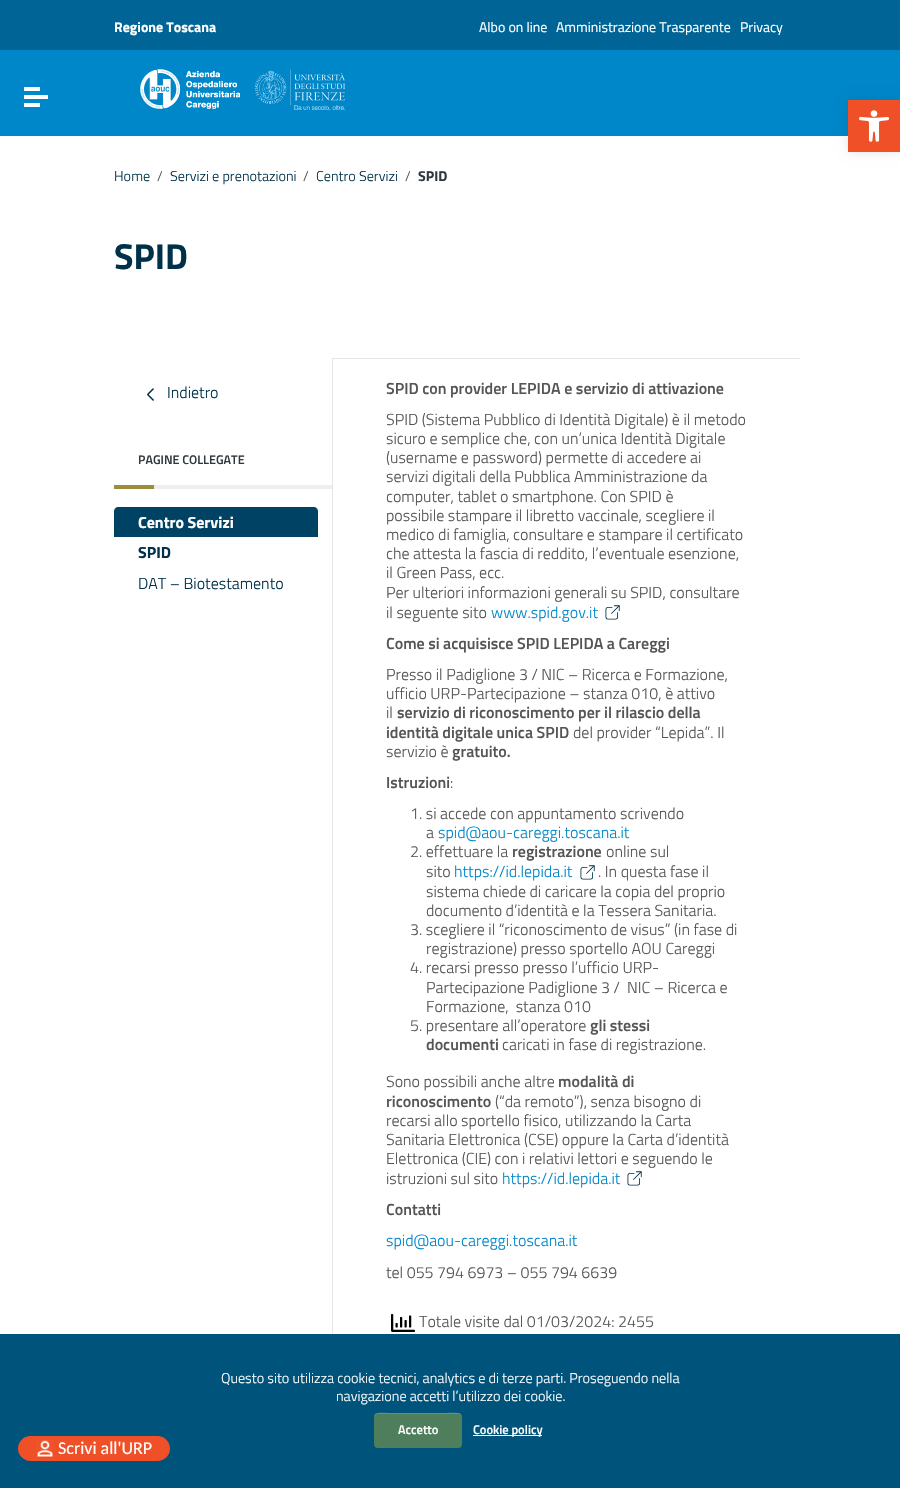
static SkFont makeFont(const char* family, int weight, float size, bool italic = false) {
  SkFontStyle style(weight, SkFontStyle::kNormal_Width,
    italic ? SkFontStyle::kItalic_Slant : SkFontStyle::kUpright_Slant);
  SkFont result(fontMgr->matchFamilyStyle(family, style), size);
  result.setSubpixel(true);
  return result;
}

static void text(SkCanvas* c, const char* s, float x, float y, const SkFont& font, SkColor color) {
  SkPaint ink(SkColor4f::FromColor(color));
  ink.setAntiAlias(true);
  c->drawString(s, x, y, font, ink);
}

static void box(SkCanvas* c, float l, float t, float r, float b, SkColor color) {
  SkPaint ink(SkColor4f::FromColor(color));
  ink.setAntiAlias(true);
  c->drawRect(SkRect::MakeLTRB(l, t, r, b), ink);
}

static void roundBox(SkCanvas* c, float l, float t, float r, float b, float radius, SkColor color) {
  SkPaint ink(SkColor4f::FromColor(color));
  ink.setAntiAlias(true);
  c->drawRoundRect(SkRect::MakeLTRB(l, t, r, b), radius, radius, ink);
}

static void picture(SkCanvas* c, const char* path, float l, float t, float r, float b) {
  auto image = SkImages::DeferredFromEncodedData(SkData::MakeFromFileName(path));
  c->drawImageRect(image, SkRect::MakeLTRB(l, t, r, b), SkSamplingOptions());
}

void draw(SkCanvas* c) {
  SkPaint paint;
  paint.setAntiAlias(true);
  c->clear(0xffffffff);
  box(c, 0, 50, 900, 136, 0xff0087c9);
  box(c, 0, 0, 900, 50, 0xff006596);
  SkFont face1 = makeFont("Titillium Web", 700, 14);
  text(c, "Regione Toscana", 114, 32, face1, 0xffffffff);
  SkFont face2 = makeFont("Titillium Web", 400, 14);
  text(c, "Albo on line", 479, 32, face2, 0xffffffff);
  text(c, "Amministrazione Trasparente", 556, 32, face2, 0xffffffff);
  text(c, "Privacy", 740, 32, face2, 0xffffffff);
  box(c, 24, 87, 40, 91, 0xffffffff);
  box(c, 24, 95, 48, 99, 0xffffffff);
  box(c, 24, 103, 40, 107, 0xffffffff);
  picture(c, "img_01.png", 140, 69, 345, 111);
  SkFont face3 = makeFont("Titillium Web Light", 300, 14.25f);
  text(c, "Home", 114, 181, face3, 0xff003149);
  text(c, "/", 157, 181, face3, 0xff555555);
  text(c, "Servizi e prenotazioni", 170, 181, face3, 0xff003149);
  text(c, "/", 303, 181, face3, 0xff555555);
  text(c, "Centro Servizi", 316, 181, face3, 0xff003149);
  text(c, "/", 405, 181, face3, 0xff555555);
  SkFont face4 = makeFont("Titillium Web", 700, 14.25f);
  text(c, "SPID", 418, 181, face4, 0xff30373d);
  SkFont face5 = makeFont("Titillium Web", 700, 36);
  text(c, "SPID", 114, 269, face5, 0xff003149);
  box(c, 332, 358, 333, 1334, 0xffe5e5e5);
  picture(c, "img_02.png", 147, 388, 154, 401);
  SkFont face6 = makeFont("Titillium Web Light", 300, 16);
  text(c, "Indietro", 167, 398, face6, 0xff003149);
  SkFont face7 = makeFont("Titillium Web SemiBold", 600, 12.5f);
  text(c, "PAGINE COLLEGATE", 138, 464, face7, 0xff30373d);
  roundBox(c, 114, 485, 332, 489, 1, 0xffeeeeee);
  box(c, 114, 485, 154, 489, 0xff9c8c3e);
  paint.setColor(0xff004263);
  c->drawPath(SkPathBuilder().moveTo(118, 507).lineTo(314, 507).cubicTo(316, 507, 318, 509, 318, 511).lineTo(318, 538).lineTo(114, 538).lineTo(114, 511).cubicTo(114, 509, 116, 507, 118, 507).close().detach(), paint);
  SkFont face8 = makeFont("Titillium Web", 700, 16);
  text(c, "Centro Servizi", 138, 528, face8, 0xffffffff);
  box(c, 114, 537, 318, 538, 0xffffffff);
  text(c, "SPID", 138, 558, face8, 0xff003149);
  text(c, "DAT – Biotestamento", 138, 589, face6, 0xff003149);
  box(c, 333, 358, 800, 359, 0xffe5e5e5);
  SkFont face9 = makeFont("Titillium Web SemiBold", 600, 16);
  text(c, "SPID con provider LEPIDA e servizio di attivazione", 386, 394, face9, 0xff555555);
  text(c, "SPID (Sistema Pubblico di Identità Digitale) è il metodo", 386, 425, face6, 0xff555555);
  text(c, "sicuro e semplice che, con un’unica Identità Digitale", 386, 444, face6, 0xff555555);
  text(c, "(username e password) permette di accedere ai", 386, 463, face6, 0xff555555);
  text(c, "servizi digitali della Pubblica Amministrazione da", 386, 482, face6, 0xff555555);
  text(c, "computer, tablet o smartphone. Con SPID è", 386, 502, face6, 0xff555555);
  text(c, "possibile stampare il libretto vaccinale, scegliere il", 386, 521, face6, 0xff555555);
  text(c, "medico di famiglia, consultare e stampare il certificato", 386, 540, face6, 0xff555555);
  text(c, "che attesta la fascia di reddito, l’eventuale esenzione,", 386, 559, face6, 0xff555555);
  text(c, "il Green Pass, ecc.", 386, 578, face6, 0xff555555);
  text(c, "Per ulteriori informazioni generali su SPID, consultare", 386, 598, face6, 0xff555555);
  text(c, "il seguente sito", 386, 618, face6, 0xff555555);
  text(c, "www.spid.gov.it", 491, 618, face6, 0xff0087c9);
  picture(c, "img_03.png", 605, 605, 620, 620);
  text(c, "Come si acquisisce SPID LEPIDA a Careggi", 386, 649, face9, 0xff555555);
  text(c, "Presso il Padiglione 3 / NIC – Ricerca e Formazione,", 386, 680, face6, 0xff555555);
  text(c, "ufficio URP-Partecipazione – stanza 010, è attivo", 386, 699, face6, 0xff555555);
  text(c, "il", 386, 718, face6, 0xff555555);
  text(c, "servizio di riconoscimento per il rilascio della", 397, 718, face9, 0xff555555);
  text(c, "identità digitale unica SPID", 386, 738, face9, 0xff555555);
  text(c, "del provider “Lepida”. Il", 573, 738, face6, 0xff555555);
  text(c, "servizio è", 386, 757, face6, 0xff555555);
  text(c, "gratuito.", 452, 757, face9, 0xff555555);
  text(c, "Istruzioni", 386, 788, face9, 0xff555555);
  text(c, ":", 450, 788, face6, 0xff555555);
  text(c, "1. si accede con appuntamento scrivendo", 410, 819, face6, 0xff555555);
  text(c, "a", 426, 838, face6, 0xff555555);
  text(c, "spid@aou-careggi.toscana.it", 438, 838, face6, 0xff0087c9);
  text(c, "2. effettuare la", 410, 857, face6, 0xff555555);
  text(c, "registrazione", 512, 857, face9, 0xff555555);
  text(c, "online sul", 606, 857, face6, 0xff555555);
  text(c, "sito", 426, 877, face6, 0xff555555);
  text(c, "https://id.lepida.it", 454, 877, face6, 0xff0087c9);
  picture(c, "img_03.png", 580, 865, 595, 880);
  text(c, ". In questa fase il", 598, 877, face6, 0xff555555);
  text(c, "sistema chiede di caricare la copia del proprio", 426, 897, face6, 0xff555555);
  text(c, "documento d’identità e la Tessera Sanitaria.", 426, 916, face6, 0xff555555);
  text(c, "3. scegliere il “riconoscimento de visus” (in fase di", 410, 935, face6, 0xff555555);
  text(c, "registrazione) presso sportello AOU Careggi", 426, 954, face6, 0xff555555);
  text(c, "4. recarsi presso presso l’ufficio URP-", 410, 973, face6, 0xff555555);
  text(c, "Partecipazione Padiglione 3 /  NIC – Ricerca e", 426, 993, face6, 0xff555555);
  text(c, "Formazione,  stanza 010", 426, 1012, face6, 0xff555555);
  text(c, "5. presentare all’operatore", 410, 1031, face6, 0xff555555);
  text(c, "gli stessi", 590, 1031, face9, 0xff555555);
  text(c, "documenti", 426, 1050, face9, 0xff555555);
  text(c, "caricati in fase di registrazione.", 502, 1050, face6, 0xff555555);
  text(c, "Sono possibili anche altre", 386, 1087, face6, 0xff555555);
  text(c, "modalità di", 558, 1087, face9, 0xff555555);
  text(c, "riconoscimento", 386, 1107, face9, 0xff555555);
  text(c, "(“da remoto”), senza bisogno di", 495, 1107, face6, 0xff555555);
  text(c, "recarsi allo sportello fisico, utilizzando la Carta", 386, 1126, face6, 0xff555555);
  text(c, "Sanitaria Elettronica (CSE) oppure la Carta d’identità", 386, 1145, face6, 0xff555555);
  text(c, "Elettronica (CIE) con i relativi lettori e seguendo le", 386, 1164, face6, 0xff555555);
  text(c, "istruzioni sul sito", 386, 1184, face6, 0xff555555);
  text(c, "https://id.lepida.it", 502, 1184, face6, 0xff0087c9);
  picture(c, "img_03.png", 627, 1171, 642, 1186);
  text(c, "Contatti", 386, 1215, face9, 0xff555555);
  text(c, "spid@aou-careggi.toscana.it", 386, 1246, face6, 0xff0087c9);
  text(c, "tel 055 794 6973 – 055 794 6639", 386, 1278, face6, 0xff555555);
  picture(c, "img_04.png", 391, 1314, 415, 1332);
  text(c, "Totale visite dal 01/03/2024: 2455", 419, 1327, face6, 0xff555555);
  box(c, 0, 1334, 900, 1488, 0xff00547c);
  roundBox(c, 18, 1436, 170, 1461, 12.5f, 0xffef5028);
  picture(c, "img_05.png", 37, 1440, 53, 1458);
  SkFont face10 = makeFont("Carlito", 400, 18);
  text(c, "Scrivi all'URP", 58, 1454, face10, 0xffffffff);
  paint.setColor(0x1a000000);
  paint.setMaskFilter(SkMaskFilter::MakeBlur(kNormal_SkBlurStyle, 5));
  c->drawRect(SkRect::MakeLTRB(848, 100, 900, 152), paint);
  paint.setMaskFilter(nullptr);
  box(c, 848, 100, 900, 152, 0xffef5028);
  picture(c, "img_06.png", 859, 110, 889, 142);
  text(c, "Questo sito utilizza cookie tecnici, analytics e di terze parti. Proseguendo nella", 221, 1383, face3, 0xffffffff);
  text(c, "navigazione accetti l’utilizzo dei cookie.", 336, 1401, face3, 0xffffffff);
  roundBox(c, 374, 1413, 462, 1448, 4, 0xff4e7e5b);
  paint.setColor(0x26ffffff);
  c->drawPath(SkPathBuilder().moveTo(378, 1414).lineTo(458, 1414).cubicTo(460, 1414, 462, 1416, 462, 1418).cubicTo(462, 1410, 449, 1413, 445, 1413).lineTo(391, 1413).cubicTo(387, 1413, 374, 1410, 374, 1418).cubicTo(374, 1416, 376, 1414, 378, 1414).close().detach(), paint);
  text(c, "Accetto", 398, 1434, face7, 0xffffffff);
  box(c, 473, 1435, 542, 1436, 0xffffffff);
  text(c, "Cookie policy", 473, 1434, face7, 0xffffffff);
}
